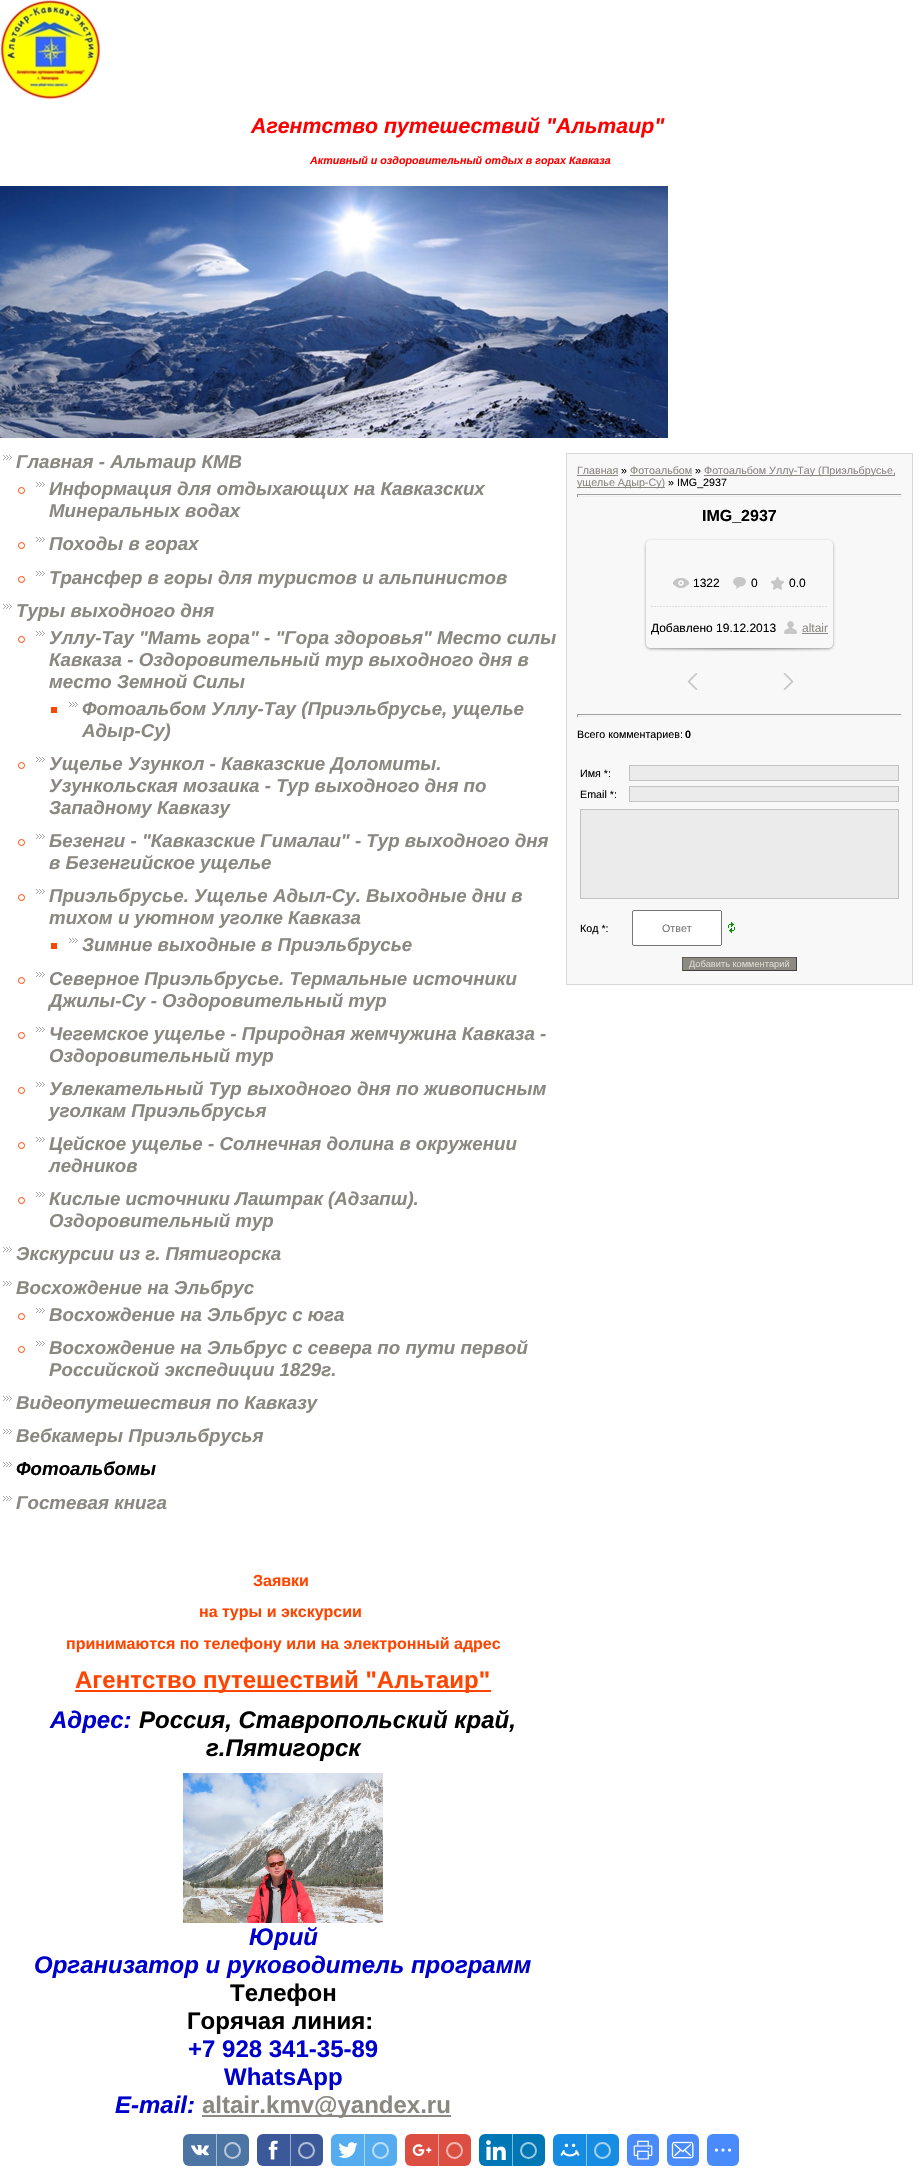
static SkFont makeFont(const char* family, int weight, float size, bool italic = false) {
  SkFontStyle style(weight, SkFontStyle::kNormal_Width,
    italic ? SkFontStyle::kItalic_Slant : SkFontStyle::kUpright_Slant);
  SkFont result(fontMgr->matchFamilyStyle(family, style), size);
  result.setSubpixel(true);
  return result;
}

static void text(SkCanvas* c, const char* s, float x, float y, const SkFont& font, SkColor color) {
  SkPaint ink(SkColor4f::FromColor(color));
  ink.setAntiAlias(true);
  c->drawString(s, x, y, font, ink);
}

static void box(SkCanvas* c, float l, float t, float r, float b, SkColor color) {
  SkPaint ink(SkColor4f::FromColor(color));
  ink.setAntiAlias(true);
  c->drawRect(SkRect::MakeLTRB(l, t, r, b), ink);
}

static void roundBox(SkCanvas* c, float l, float t, float r, float b, float radius, SkColor color) {
  SkPaint ink(SkColor4f::FromColor(color));
  ink.setAntiAlias(true);
  c->drawRoundRect(SkRect::MakeLTRB(l, t, r, b), radius, radius, ink);
}

static void picture(SkCanvas* c, const char* path, float l, float t, float r, float b) {
  auto image = SkImages::DeferredFromEncodedData(SkData::MakeFromFileName(path));
  c->drawImageRect(image, SkRect::MakeLTRB(l, t, r, b), SkSamplingOptions());
}

void draw(SkCanvas* c) {
  SkPaint paint;
  paint.setAntiAlias(true);
  c->clear(0xffffffff);
  picture(c, "img_01.png", 0, 0, 100, 100);
  SkFont face1 = makeFont("Liberation Sans", 700, 21.3f, true);
  text(c, "Агентство путешествий \"Альтаир\"", 251, 133, face1, 0xffff0000);
  SkFont face2 = makeFont("Liberation Sans", 700, 10.7f, true);
  text(c, "Активный и оздоровительный отдых в горах Кавказа", 310, 164, face2, 0xffff0000);
  picture(c, "img_02.png", 0, 186, 668, 438);
  picture(c, "img_03.png", 3, 455, 12, 460);
  SkFont face3 = makeFont("Liberation Sans", 700, 18.7f, true);
  text(c, "Главная - Альтаир КМВ", 16, 468, face3, 0xff8b8881);
  picture(c, "img_03.png", 36, 482, 45, 487);
  paint.setStyle(SkPaint::kStroke_Style);
  paint.setStrokeWidth(1);
  paint.setColor(0xffff4500);
  c->drawCircle(21.5f, 490.5f, 3, paint);
  text(c, "Информация для отдыхающих на Кавказских", 49, 495, face3, 0xff8b8881);
  text(c, "Минеральных водах", 49, 517, face3, 0xff8b8881);
  picture(c, "img_03.png", 36, 537, 45, 542);
  c->drawCircle(21.5f, 545.5f, 3, paint);
  text(c, "Походы в горах", 49, 550, face3, 0xff8b8881);
  picture(c, "img_03.png", 36, 571, 45, 576);
  c->drawCircle(21.5f, 579.5f, 3, paint);
  text(c, "Трансфер в горы для туристов и альпинистов", 49, 584, face3, 0xff8b8881);
  picture(c, "img_03.png", 3, 604, 12, 609);
  text(c, "Туры выходного дня", 16, 617, face3, 0xff8b8881);
  picture(c, "img_03.png", 36, 631, 45, 636);
  c->drawCircle(21.5f, 639.5f, 3, paint);
  text(c, "Уллу-Тау \"Мать гора\" - \"Гора здоровья\" Место силы", 49, 644, face3, 0xff8b8881);
  text(c, "Кавказа - Оздоровительный тур выходного дня в", 49, 666, face3, 0xff8b8881);
  text(c, "место Земной Силы", 49, 688, face3, 0xff8b8881);
  picture(c, "img_03.png", 69, 702, 78, 707);
  box(c, 51, 707, 57, 713, 0xffff4500);
  text(c, "Фотоальбом Уллу-Тау (Приэльбрусье, ущелье", 82, 715, face3, 0xff8b8881);
  text(c, "Адыр-Су)", 82, 737, face3, 0xff8b8881);
  picture(c, "img_03.png", 36, 757, 45, 762);
  c->drawCircle(21.5f, 765.5f, 3, paint);
  text(c, "Ущелье Узункол - Кавказские Доломиты.", 49, 770, face3, 0xff8b8881);
  text(c, "Узункольская мозаика - Тур выходного дня по", 49, 792, face3, 0xff8b8881);
  text(c, "Западному Кавказу", 49, 814, face3, 0xff8b8881);
  picture(c, "img_03.png", 36, 834, 45, 839);
  c->drawCircle(21.5f, 842.5f, 3, paint);
  text(c, "Безенги - \"Кавказские Гималаи\" - Тур выходного дня", 49, 847, face3, 0xff8b8881);
  text(c, "в Безенгийское ущелье", 49, 869, face3, 0xff8b8881);
  picture(c, "img_03.png", 36, 889, 45, 894);
  c->drawCircle(21.5f, 897.5f, 3, paint);
  text(c, "Приэльбрусье. Ущелье Адыл-Су. Выходные дни в", 49, 902, face3, 0xff8b8881);
  text(c, "тихом и уютном уголке Кавказа", 49, 924, face3, 0xff8b8881);
  picture(c, "img_03.png", 69, 938, 78, 943);
  box(c, 51, 943, 57, 949, 0xffff4500);
  text(c, "Зимние выходные в Приэльбрусье", 82, 951, face3, 0xff8b8881);
  picture(c, "img_03.png", 36, 972, 45, 977);
  c->drawCircle(21.5f, 980.5f, 3, paint);
  text(c, "Северное Приэльбрусье. Термальные источники", 49, 985, face3, 0xff8b8881);
  text(c, "Джилы-Су - Оздоровительный тур", 49, 1007, face3, 0xff8b8881);
  picture(c, "img_03.png", 36, 1027, 45, 1032);
  c->drawCircle(21.5f, 1035.5f, 3, paint);
  text(c, "Чегемское ущелье - Природная жемчужина Кавказа -", 49, 1040, face3, 0xff8b8881);
  text(c, "Оздоровительный тур", 49, 1062, face3, 0xff8b8881);
  picture(c, "img_03.png", 36, 1082, 45, 1087);
  c->drawCircle(21.5f, 1090.5f, 3, paint);
  text(c, "Увлекательный Тур выходного дня по живописным", 49, 1095, face3, 0xff8b8881);
  text(c, "уголкам Приэльбрусья", 49, 1117, face3, 0xff8b8881);
  picture(c, "img_03.png", 36, 1137, 45, 1142);
  c->drawCircle(21.5f, 1145.5f, 3, paint);
  text(c, "Цейское ущелье - Солнечная долина в окружении", 49, 1150, face3, 0xff8b8881);
  text(c, "ледников", 49, 1172, face3, 0xff8b8881);
  picture(c, "img_03.png", 36, 1192, 45, 1197);
  c->drawCircle(21.5f, 1200.5f, 3, paint);
  text(c, "Кислые источники Лаштрак (Адзапш).", 49, 1205, face3, 0xff8b8881);
  text(c, "Оздоровительный тур", 49, 1227, face3, 0xff8b8881);
  picture(c, "img_03.png", 3, 1247, 12, 1252);
  text(c, "Экскурсии из г. Пятигорска", 16, 1260, face3, 0xff8b8881);
  picture(c, "img_03.png", 3, 1281, 12, 1286);
  text(c, "Восхождение на Эльбрус", 16, 1294, face3, 0xff8b8881);
  picture(c, "img_03.png", 36, 1308, 45, 1313);
  c->drawCircle(21.5f, 1316.5f, 3, paint);
  text(c, "Восхождение на Эльбрус с юга", 49, 1321, face3, 0xff8b8881);
  picture(c, "img_03.png", 36, 1341, 45, 1346);
  c->drawCircle(21.5f, 1349.5f, 3, paint);
  text(c, "Восхождение на Эльбрус с севера по пути первой", 49, 1354, face3, 0xff8b8881);
  text(c, "Российской экспедиции 1829г.", 49, 1376, face3, 0xff8b8881);
  picture(c, "img_03.png", 3, 1396, 12, 1401);
  text(c, "Видеопутешествия по Кавказу", 16, 1409, face3, 0xff8b8881);
  picture(c, "img_03.png", 3, 1429, 12, 1434);
  text(c, "Вебкамеры Приэльбрусья", 16, 1442, face3, 0xff8b8881);
  picture(c, "img_03.png", 3, 1462, 12, 1467);
  text(c, "Фотоальбомы", 16, 1475, face3, 0xff000000);
  picture(c, "img_03.png", 3, 1496, 12, 1501);
  text(c, "Гостевая книга", 16, 1509, face3, 0xff8b8881);
  SkFont face4 = makeFont("Liberation Sans", 700, 16);
  text(c, "Заявки", 253, 1586, face4, 0xffff4500);
  text(c, "на туры и экскурсии", 199, 1617, face4, 0xffff4500);
  text(c, "принимаются по телефону или на электронный адрес", 66, 1649, face4, 0xffff4500);
  box(c, 75, 1690, 491, 1692, 0xffff4500);
  SkFont face5 = makeFont("Liberation Sans", 700, 24);
  text(c, "Агентство путешествий \"Альтаир\"", 75, 1688, face5, 0xffff4500);
  SkFont face6 = makeFont("Liberation Sans", 700, 24, true);
  text(c, "Адрес:", 50, 1728, face6, 0xff0000cd);
  text(c, "Россия, Ставропольский край,", 139, 1728, face6, 0xff000000);
  text(c, "г.Пятигорск", 206, 1756, face6, 0xff000000);
  picture(c, "img_04.png", 183, 1773, 383, 1923);
  text(c, "Юрий", 249, 1945, face6, 0xff0000cd);
  text(c, "Организатор и руководитель программ", 34, 1973, face6, 0xff0000cd);
  text(c, "Телефон", 230, 2001, face5, 0xff000000);
  text(c, "Горячая линия:", 187, 2029, face5, 0xff000000);
  text(c, "+7 928 341-35-89", 188, 2057, face5, 0xff0000cd);
  text(c, "WhatsApp", 224, 2085, face5, 0xff0000cd);
  text(c, "E-mail:", 115, 2113, face6, 0xff0000cd);
  box(c, 202, 2115, 451, 2117, 0xff8b8881);
  text(c, "altair.kmv@yandex.ru", 202, 2113, face5, 0xff8b8881);
  paint.setColor(0xffd7d7d7);
  c->drawRect(SkRect::MakeLTRB(566.5f, 453.5f, 912.5f, 984.5f), paint);
  box(c, 567, 454, 912, 984, 0xfff8f8f8);
  SkFont face7 = makeFont("Liberation Sans", 400, 10.7f);
  text(c, "Главная", 577, 474, face7, 0xff8b8881);
  box(c, 577, 475, 618, 476, 0xff8b8881);
  text(c, "»", 621, 474, face7, 0xff000000);
  text(c, "Фотоальбом", 630, 474, face7, 0xff8b8881);
  box(c, 630, 475, 692, 476, 0xff8b8881);
  text(c, "»", 695, 474, face7, 0xff000000);
  box(c, 704, 475, 895, 476, 0xff8b8881);
  text(c, "Фотоальбом Уллу-Тау (Приэльбрусье,", 704, 474, face7, 0xff8b8881);
  box(c, 577, 487, 665, 488, 0xff8b8881);
  text(c, "ущелье Адыр-Су)", 577, 486, face7, 0xff8b8881);
  text(c, "» IMG_2937", 668, 486, face7, 0xff000000);
  box(c, 577, 494, 902, 495, 0xff9f9f9f);
  box(c, 901, 494, 902, 497, 0xffeeeeee);
  box(c, 577, 496, 902, 497, 0xffeeeeee);
  box(c, 577, 494, 578, 497, 0xff9f9f9f);
  text(c, "IMG_2937", 702, 521, face4, 0xff000000);
  c->save();
  c->clipPath(SkPathBuilder(SkPathFillType::kEvenOdd).moveTo(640, 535).lineTo(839, 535).lineTo(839, 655).lineTo(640, 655).close().moveTo(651, 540).lineTo(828, 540).cubicTo(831, 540, 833, 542, 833, 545).lineTo(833, 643).cubicTo(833, 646, 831, 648, 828, 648).lineTo(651, 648).cubicTo(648, 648, 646, 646, 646, 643).lineTo(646, 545).cubicTo(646, 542, 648, 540, 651, 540).close().detach(), true);
  paint.setStyle(SkPaint::kFill_Style);
  paint.setColor(0x5e000000);
  paint.setMaskFilter(SkMaskFilter::MakeBlur(kNormal_SkBlurStyle, 1.5f));
  c->drawRoundRect(SkRect::MakeLTRB(646, 541, 833, 649), 5, 5, paint);
  paint.setMaskFilter(nullptr);
  c->restore();
  picture(c, "img_05.png", 673, 578, 689, 588);
  SkFont face8 = makeFont("Liberation Sans", 400, 12);
  text(c, "1322", 693, 587, face8, 0xff000000);
  picture(c, "img_06.png", 733, 577, 746, 589);
  text(c, "0", 751, 587, face8, 0xff000000);
  picture(c, "img_07.png", 771, 577, 784, 590);
  text(c, "0.0", 789, 587, face8, 0xff000000);
  picture(c, "img_08.png", 651, 606, 827, 607);
  text(c, "Добавлено 19.12.2013", 651, 632, face8, 0xff000000);
  picture(c, "img_09.png", 784, 621, 797, 634);
  text(c, "altair", 802, 632, face8, 0xff8b8881);
  box(c, 802, 633, 828, 634, 0xff8b8881);
  picture(c, "img_10.png", 660, 648, 820, 651);
  picture(c, "img_11.png", 687, 673, 698, 690);
  picture(c, "img_12.png", 783, 673, 794, 690);
  box(c, 577, 714, 902, 715, 0xff9f9f9f);
  box(c, 901, 714, 902, 717, 0xffeeeeee);
  box(c, 577, 716, 902, 717, 0xffeeeeee);
  box(c, 577, 714, 578, 717, 0xff9f9f9f);
  text(c, "Всего комментариев:", 577, 738, face7, 0xff000000);
  SkFont face9 = makeFont("Liberation Sans", 700, 10.7f);
  text(c, "0", 685, 738, face9, 0xff000000);
  text(c, "Имя *:", 580, 777, face7, 0xff000000);
  paint.setColor(0xffebebeb);
  c->drawRect(SkRect::MakeLTRB(629.5f, 765.5f, 898.5f, 780.5f), paint);
  paint.setStyle(SkPaint::kStroke_Style);
  paint.setColor(0xffc2c2c2);
  c->drawRect(SkRect::MakeLTRB(629.5f, 765.5f, 898.5f, 780.5f), paint);
  text(c, "Email *:", 580, 798, face7, 0xff000000);
  paint.setStyle(SkPaint::kFill_Style);
  paint.setColor(0xffebebeb);
  c->drawRect(SkRect::MakeLTRB(629.5f, 786.5f, 898.5f, 801.5f), paint);
  paint.setStyle(SkPaint::kStroke_Style);
  paint.setColor(0xffc2c2c2);
  c->drawRect(SkRect::MakeLTRB(629.5f, 786.5f, 898.5f, 801.5f), paint);
  paint.setStyle(SkPaint::kFill_Style);
  paint.setColor(0xffebebeb);
  c->drawRect(SkRect::MakeLTRB(580.5f, 809.5f, 898.5f, 898.5f), paint);
  paint.setStyle(SkPaint::kStroke_Style);
  paint.setColor(0xffc2c2c2);
  c->drawRect(SkRect::MakeLTRB(580.5f, 809.5f, 898.5f, 898.5f), paint);
  text(c, "Код *:", 580, 932, face7, 0xff000000);
  paint.setStyle(SkPaint::kFill_Style);
  paint.setColor(0xffffffff);
  c->drawRoundRect(SkRect::MakeLTRB(632.5f, 910.5f, 721.5f, 945.5f), 1.5f, 1.5f, paint);
  paint.setStyle(SkPaint::kStroke_Style);
  paint.setColor(0xff767676);
  c->drawRoundRect(SkRect::MakeLTRB(632.5f, 910.5f, 721.5f, 945.5f), 1.5f, 1.5f, paint);
  text(c, "Ответ", 662, 932, face7, 0xff757575);
  picture(c, "img_13.png", 728, 922, 735, 933);
  box(c, 683, 958, 796, 970, 0xff8d8a83);
  box(c, 682, 957, 797, 958, 0xff615e58);
  box(c, 796, 957, 797, 971, 0xff413f3b);
  box(c, 682, 970, 797, 971, 0xff413f3b);
  box(c, 682, 957, 683, 971, 0xff615e58);
  SkFont face10 = makeFont("Liberation Sans", 400, 9.25f);
  text(c, "Добавить комментарий", 689, 967, face10, 0xffdad7cc);
  roundBox(c, 183, 2134, 249, 2166, 6, 0xff4d75a3);
  picture(c, "img_14.png", 191, 2145, 209, 2156);
  box(c, 216, 2134, 217, 2166, 0xffa6bad1);
  paint.setStrokeWidth(2);
  paint.setColor(0xffb8c8da);
  c->drawCircle(232.5f, 2150.5f, 7.5f, paint);
  roundBox(c, 257, 2134, 323, 2166, 6, 0xff3b5998);
  picture(c, "img_15.png", 268, 2140, 278, 2160);
  box(c, 290, 2134, 291, 2166, 0xff9daccc);
  paint.setColor(0xffb1bdd6);
  c->drawCircle(306.5f, 2150.5f, 7.5f, paint);
  roundBox(c, 331, 2134, 397, 2166, 6, 0xff55acee);
  picture(c, "img_16.png", 338, 2142, 358, 2158);
  box(c, 364, 2134, 365, 2166, 0xffaad6f7);
  paint.setColor(0xffbbdef8);
  c->drawCircle(380.5f, 2150.5f, 7.5f, paint);
  roundBox(c, 405, 2134, 471, 2166, 6, 0xffdc4e41);
  picture(c, "img_17.png", 412, 2144, 432, 2156);
  box(c, 438, 2134, 439, 2166, 0xffeea7a0);
  paint.setColor(0xfff1b8b3);
  c->drawCircle(454.5f, 2150.5f, 7.5f, paint);
  roundBox(c, 479, 2134, 545, 2166, 6, 0xff0077b5);
  picture(c, "img_18.png", 486, 2140, 506, 2160);
  box(c, 512, 2134, 513, 2166, 0xff80bbda);
  paint.setColor(0xff99c9e1);
  c->drawCircle(528.5f, 2150.5f, 7.5f, paint);
  roundBox(c, 553, 2134, 619, 2166, 6, 0xff168de2);
  picture(c, "img_19.png", 560, 2143, 580, 2157);
  box(c, 586, 2134, 587, 2166, 0xff8bc6f1);
  paint.setColor(0xffa2d1f3);
  c->drawCircle(602.5f, 2150.5f, 7.5f, paint);
  roundBox(c, 627, 2134, 659, 2166, 6, 0xff498bfa);
  picture(c, "img_20.png", 633, 2140, 653, 2160);
  roundBox(c, 667, 2134, 699, 2166, 6, 0xff498bfa);
  picture(c, "img_21.png", 671, 2141, 694, 2159);
  roundBox(c, 707, 2134, 739, 2166, 6, 0xff498bfa);
  picture(c, "img_22.png", 714, 2148, 732, 2152);
}
